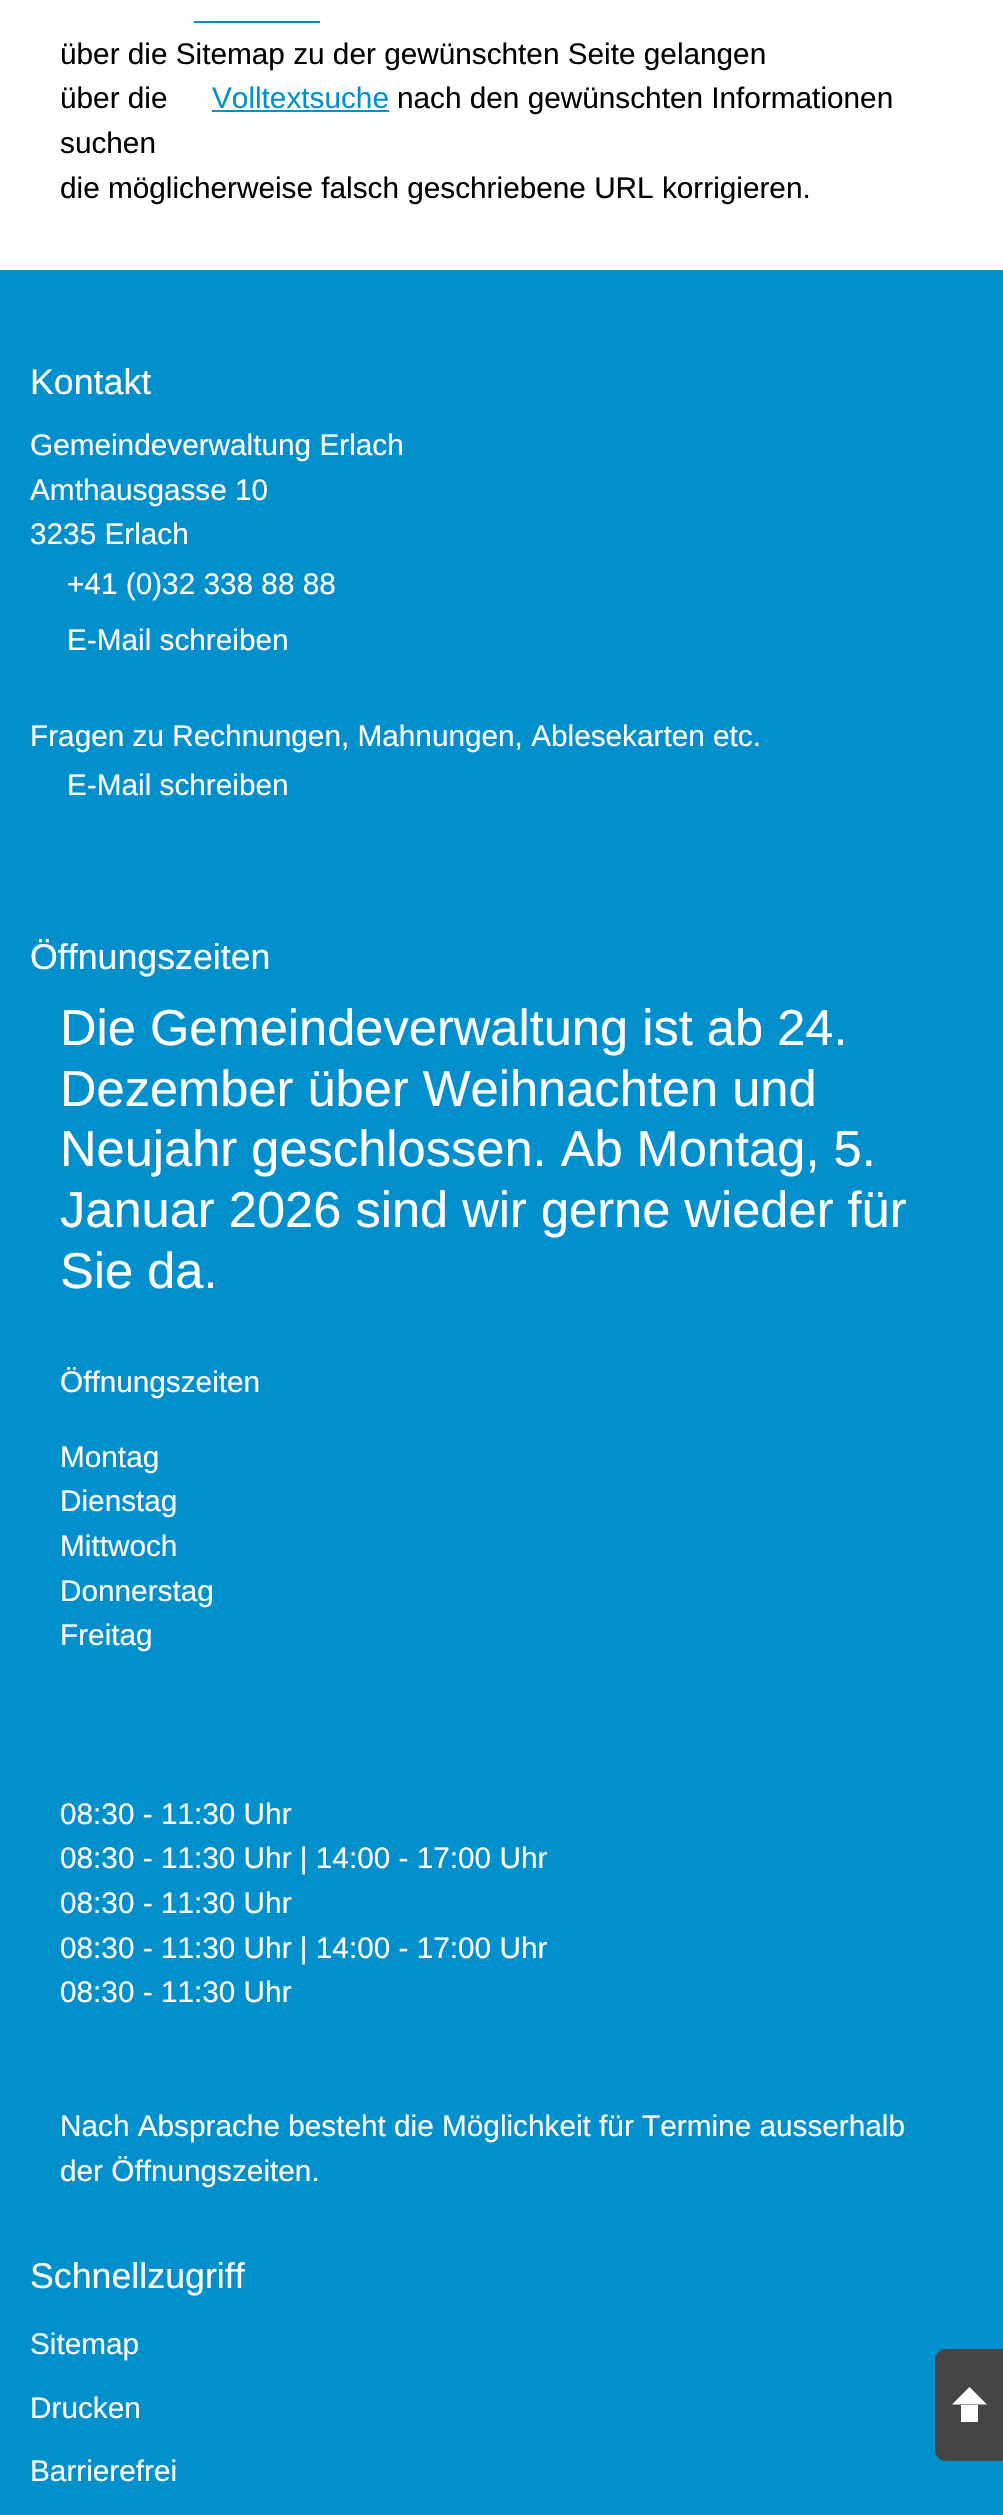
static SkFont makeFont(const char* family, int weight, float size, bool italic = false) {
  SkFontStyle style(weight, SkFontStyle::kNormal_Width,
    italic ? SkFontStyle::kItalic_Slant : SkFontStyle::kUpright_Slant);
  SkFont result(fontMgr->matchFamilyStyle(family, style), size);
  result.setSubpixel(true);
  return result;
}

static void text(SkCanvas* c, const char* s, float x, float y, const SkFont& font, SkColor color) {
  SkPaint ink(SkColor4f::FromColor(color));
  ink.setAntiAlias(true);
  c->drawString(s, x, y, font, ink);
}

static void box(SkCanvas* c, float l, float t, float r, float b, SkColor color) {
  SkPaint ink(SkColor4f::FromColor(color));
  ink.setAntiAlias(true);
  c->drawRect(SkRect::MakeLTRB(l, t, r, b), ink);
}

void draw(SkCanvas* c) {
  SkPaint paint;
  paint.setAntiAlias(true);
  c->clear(0xffffffff);
  box(c, 194, 21, 320, 23, 0xff0290cc);
  SkFont face1 = makeFont("Liberation Sans", 400, 29.75f);
  text(c, "über die Sitemap zu der gewünschten Seite gelangen", 60, 64, face1, 0xff000000);
  text(c, "über die", 60, 108, face1, 0xff000000);
  text(c, "Volltextsuche", 212, 108, face1, 0xff0290cc);
  box(c, 212, 110, 389, 112, 0xff0290cc);
  text(c, "nach den gewünschten Informationen", 397, 108, face1, 0xff000000);
  text(c, "suchen", 60, 153, face1, 0xff000000);
  text(c, "die möglicherweise falsch geschriebene URL korrigieren.", 60, 198, face1, 0xff000000);
  box(c, 0, 270, 1003, 2515, 0xff0290cc);
  SkFont face2 = makeFont("Liberation Sans", 400, 35.75f);
  text(c, "Kontakt", 30, 394, face2, 0xffffffff);
  text(c, "Gemeindeverwaltung Erlach", 30, 455, face1, 0xffffffff);
  text(c, "Amthausgasse 10", 30, 500, face1, 0xffffffff);
  text(c, "3235 Erlach", 30, 544, face1, 0xffffffff);
  text(c, "+41 (0)32 338 88 88", 67, 594, face1, 0xffffffff);
  text(c, "E-Mail schreiben", 67, 650, face1, 0xffffffff);
  text(c, "Fragen zu Rechnungen, Mahnungen, Ablesekarten etc.", 30, 746, face1, 0xffffffff);
  text(c, "E-Mail schreiben", 67, 795, face1, 0xffffffff);
  text(c, "Öffnungszeiten", 30, 969, face2, 0xffffffff);
  SkFont face3 = makeFont("Liberation Sans", 400, 50.6f);
  text(c, "Die Gemeindeverwaltung ist ab 24.", 60, 1045, face3, 0xffffffff);
  text(c, "Dezember über Weihnachten und", 60, 1106, face3, 0xffffffff);
  text(c, "Neujahr geschlossen. Ab Montag, 5.", 60, 1166, face3, 0xffffffff);
  text(c, "Januar 2026 sind wir gerne wieder für", 60, 1227, face3, 0xffffffff);
  text(c, "Sie da.", 60, 1288, face3, 0xffffffff);
  text(c, "Öffnungszeiten", 60, 1392, face1, 0xffffffff);
  text(c, "Montag", 60, 1467, face1, 0xffffffff);
  text(c, "Dienstag", 60, 1511, face1, 0xffffffff);
  text(c, "Mittwoch", 60, 1556, face1, 0xffffffff);
  text(c, "Donnerstag", 60, 1601, face1, 0xffffffff);
  text(c, "Freitag", 60, 1645, face1, 0xffffffff);
  text(c, "08:30 - 11:30 Uhr", 60, 1824, face1, 0xffffffff);
  text(c, "08:30 - 11:30 Uhr | 14:00 - 17:00 Uhr", 60, 1868, face1, 0xffffffff);
  text(c, "08:30 - 11:30 Uhr", 60, 1913, face1, 0xffffffff);
  text(c, "08:30 - 11:30 Uhr | 14:00 - 17:00 Uhr", 60, 1958, face1, 0xffffffff);
  text(c, "08:30 - 11:30 Uhr", 60, 2002, face1, 0xffffffff);
  text(c, "Nach Absprache besteht die Möglichkeit für Termine ausserhalb", 60, 2136, face1, 0xffffffff);
  text(c, "der Öffnungszeiten.", 60, 2181, face1, 0xffffffff);
  text(c, "Schnellzugriff", 30, 2288, face2, 0xffffffff);
  text(c, "Sitemap", 30, 2354, face1, 0xffffffff);
  text(c, "Drucken", 30, 2418, face1, 0xffffffff);
  text(c, "Barrierefrei", 30, 2481, face1, 0xffffffff);
  paint.setColor(0xff444444);
  c->drawPath(SkPathBuilder().moveTo(946, 2349).lineTo(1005, 2349).lineTo(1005, 2461).lineTo(946, 2461).cubicTo(940, 2461, 935, 2456, 935, 2450).lineTo(935, 2360).cubicTo(935, 2354, 940, 2349, 946, 2349).close().detach(), paint);
  paint.setColor(0xffffffff);
  c->drawPath(SkPathBuilder().moveTo(987, 2404.5f).lineTo(952, 2404.5f).lineTo(969.5f, 2387).close().detach(), paint);
  box(c, 961, 2405, 978, 2422, 0xffffffff);
}
